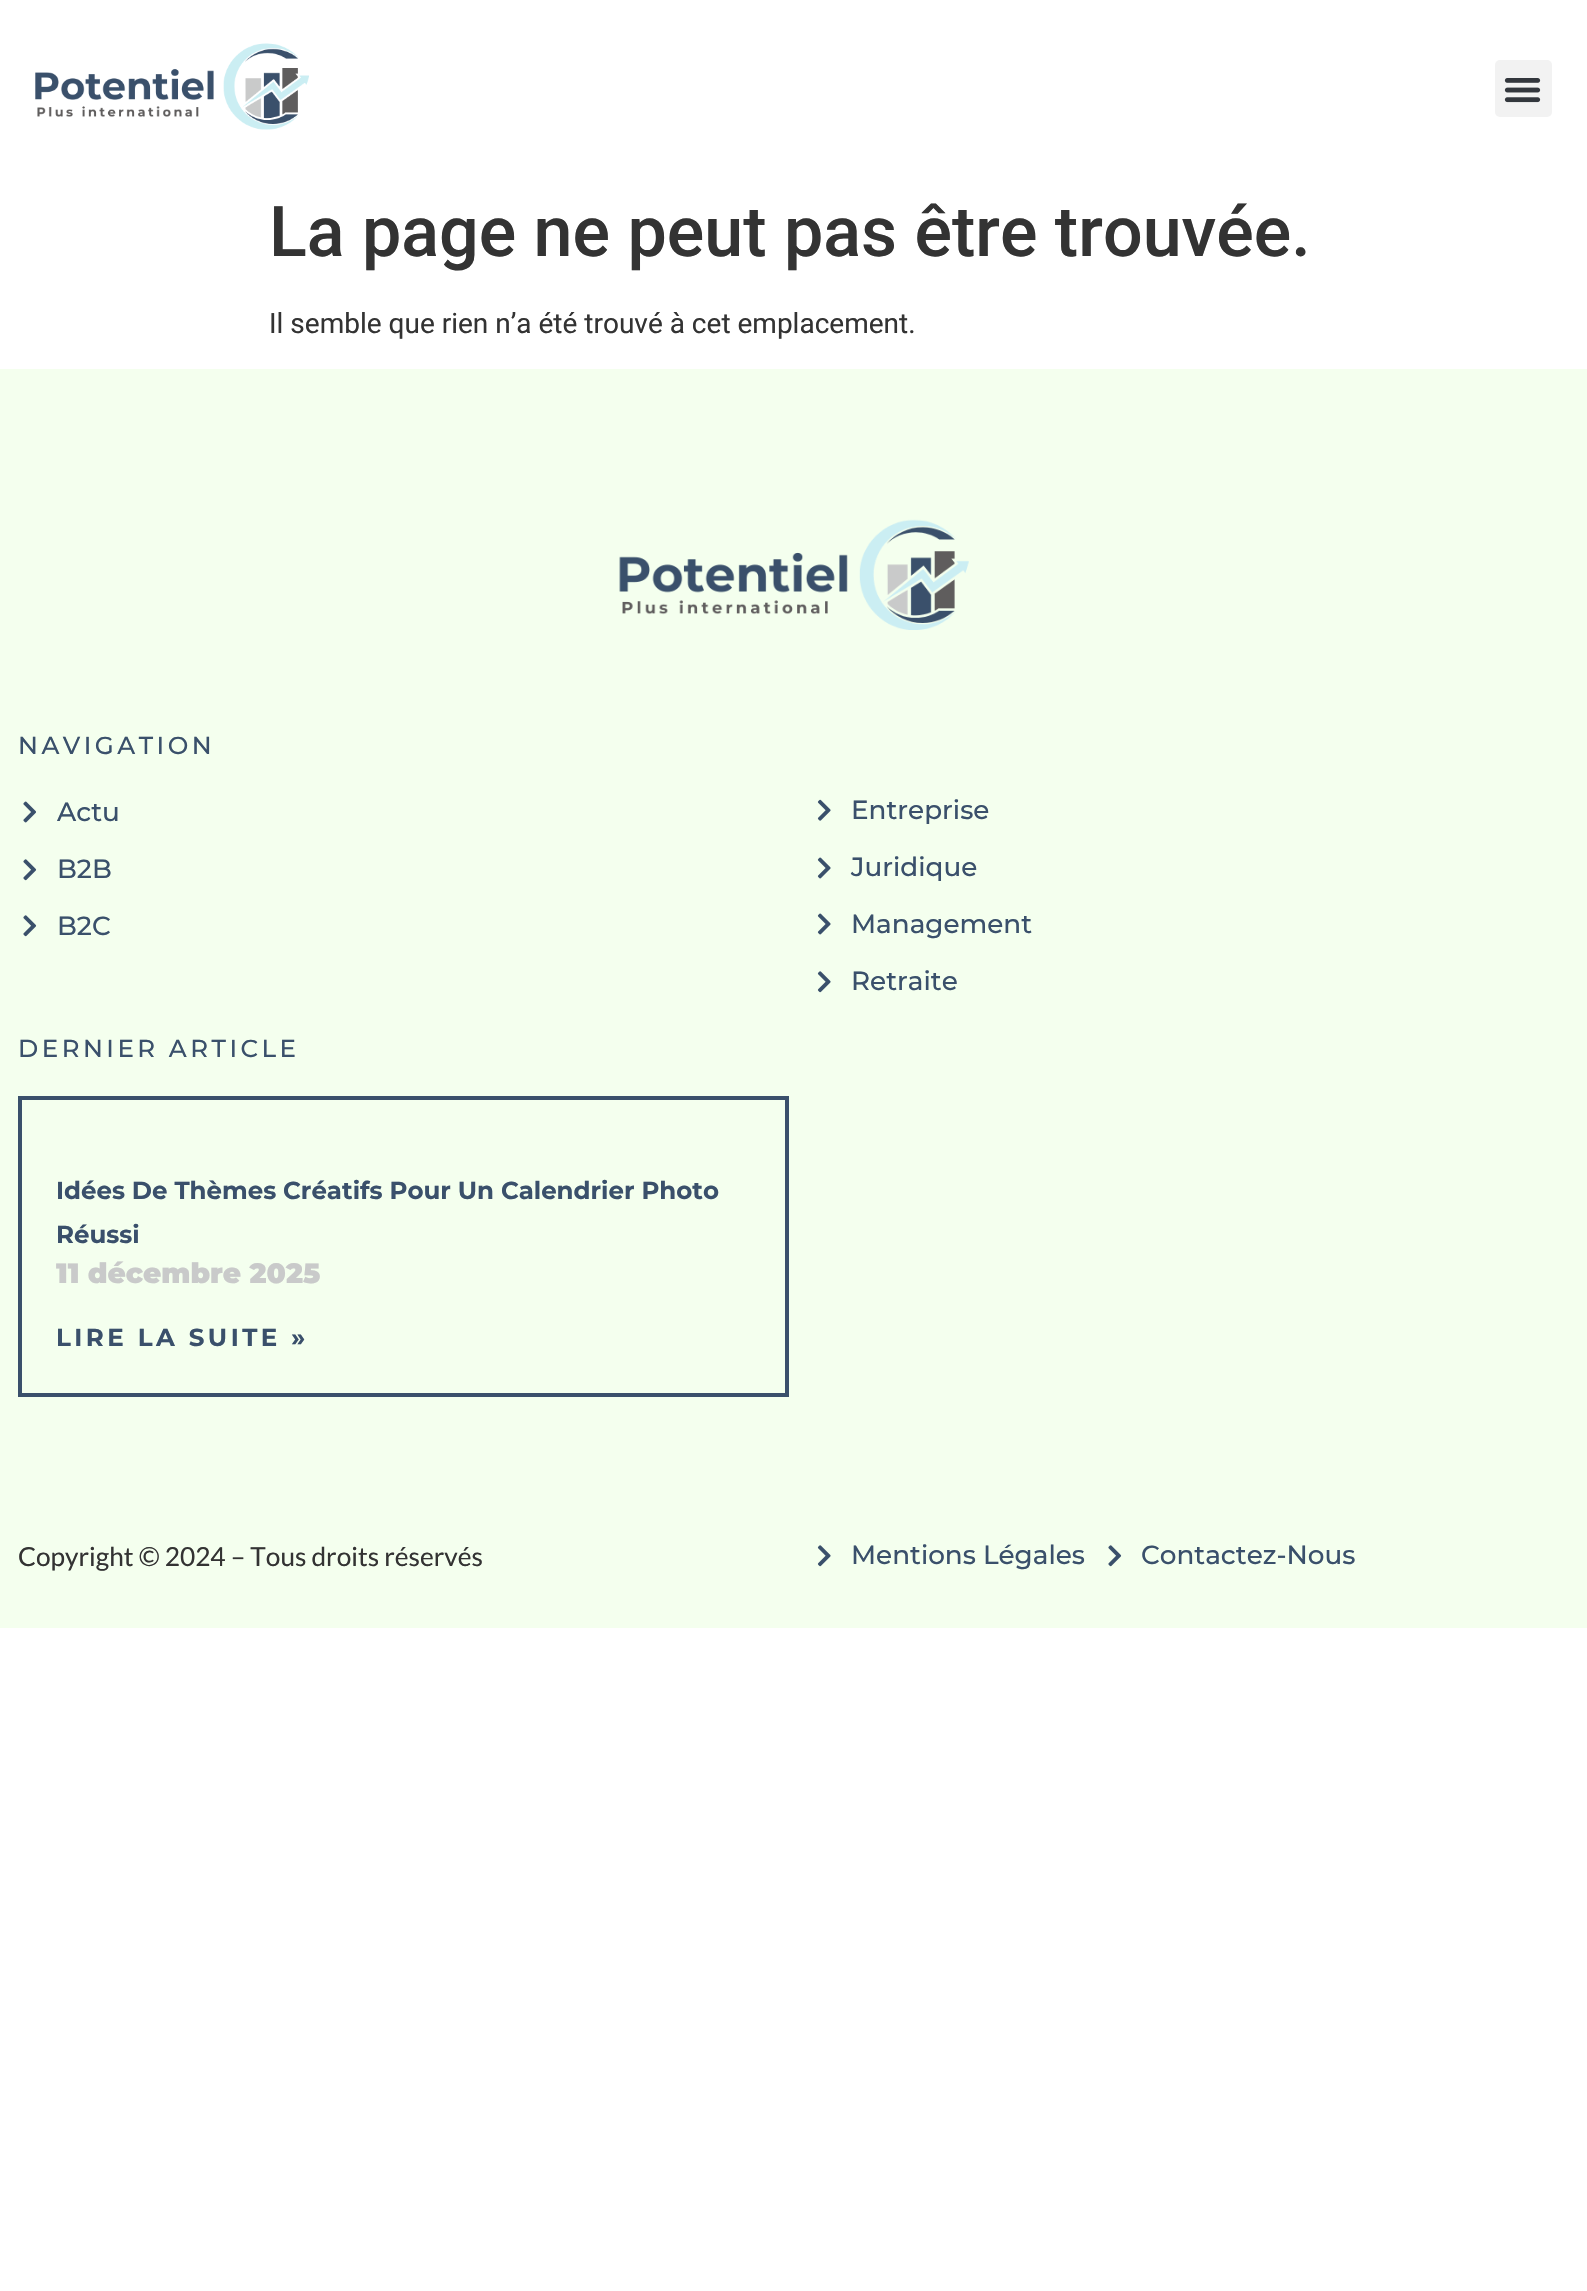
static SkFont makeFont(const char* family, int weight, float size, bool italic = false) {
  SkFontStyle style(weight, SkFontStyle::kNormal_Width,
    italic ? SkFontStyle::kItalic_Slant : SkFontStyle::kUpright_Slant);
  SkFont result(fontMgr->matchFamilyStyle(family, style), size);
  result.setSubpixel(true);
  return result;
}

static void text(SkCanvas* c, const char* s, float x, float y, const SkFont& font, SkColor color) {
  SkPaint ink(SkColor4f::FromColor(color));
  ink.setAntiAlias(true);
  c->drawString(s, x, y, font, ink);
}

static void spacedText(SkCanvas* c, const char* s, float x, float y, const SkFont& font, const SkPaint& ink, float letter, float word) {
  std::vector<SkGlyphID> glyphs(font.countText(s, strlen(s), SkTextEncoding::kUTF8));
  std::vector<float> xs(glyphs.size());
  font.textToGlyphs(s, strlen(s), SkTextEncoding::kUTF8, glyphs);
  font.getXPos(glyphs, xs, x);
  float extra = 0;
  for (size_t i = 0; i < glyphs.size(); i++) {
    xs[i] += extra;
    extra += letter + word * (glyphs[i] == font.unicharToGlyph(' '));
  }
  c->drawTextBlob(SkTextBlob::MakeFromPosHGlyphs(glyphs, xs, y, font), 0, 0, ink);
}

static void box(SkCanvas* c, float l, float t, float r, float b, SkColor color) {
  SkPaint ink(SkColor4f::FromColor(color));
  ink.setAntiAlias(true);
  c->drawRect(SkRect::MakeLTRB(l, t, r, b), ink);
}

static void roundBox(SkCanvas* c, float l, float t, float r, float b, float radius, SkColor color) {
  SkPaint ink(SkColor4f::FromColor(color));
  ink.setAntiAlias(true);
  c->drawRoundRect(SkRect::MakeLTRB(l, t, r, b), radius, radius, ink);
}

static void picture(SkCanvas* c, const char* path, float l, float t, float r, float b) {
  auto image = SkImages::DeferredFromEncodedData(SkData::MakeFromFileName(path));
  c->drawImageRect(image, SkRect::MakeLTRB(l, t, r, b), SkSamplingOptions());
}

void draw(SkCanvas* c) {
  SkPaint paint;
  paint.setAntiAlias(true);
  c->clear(0xffffffff);
  picture(c, "img_01.png", 35, 43, 309, 130);
  roundBox(c, 1495, 60, 1552, 117, 5, 0xfff2f2f2);
  picture(c, "img_02.png", 1504, 78, 1541, 103);
  SkFont face1 = makeFont("Roboto", 500, 70);
  text(c, "La page ne peut pas être trouvée.", 269, 256, face1, 0xff333333);
  SkFont face2 = makeFont("Roboto", 400, 28);
  text(c, "Il semble que rien n’a été trouvé à cet emplacement.", 269, 333, face2, 0xff333333);
  box(c, 0, 369, 1587, 1628, 0xfff4ffee);
  picture(c, "img_03.png", 619, 519, 969, 630);
  SkFont face3 = makeFont("Montserrat", 500, 24.5f);
  paint.setColor(0xff3a506b);
  spacedText(c, "NAVIGATION", 18, 754, face3, paint, 3.5f, 0);
  picture(c, "img_04.png", 23, 801, 36, 823);
  SkFont face4 = makeFont("Montserrat", 500, 26.25f);
  text(c, "Actu", 57, 821, face4, 0xff3a506b);
  picture(c, "img_05.png", 23, 859, 37, 881);
  text(c, "B2B", 57, 878, face4, 0xff3a506b);
  picture(c, "img_05.png", 23, 915, 37, 937);
  text(c, "B2C", 57, 935, face4, 0xff3a506b);
  picture(c, "img_06.png", 817, 799, 831, 821);
  text(c, "Entreprise", 851, 819, face4, 0xff3a506b);
  picture(c, "img_07.png", 817, 857, 831, 879);
  text(c, "Juridique", 851, 876, face4, 0xff3a506b);
  picture(c, "img_07.png", 817, 913, 831, 935);
  text(c, "Management", 851, 933, face4, 0xff3a506b);
  picture(c, "img_08.png", 817, 971, 831, 993);
  text(c, "Retraite", 851, 990, face4, 0xff3a506b);
  spacedText(c, "DERNIER ARTICLE", 18, 1057, face3, paint, 3.5f, 0);
  paint.setStyle(SkPaint::kStroke_Style);
  paint.setStrokeWidth(4);
  c->drawRect(SkRect::MakeLTRB(20, 1098, 787, 1395), paint);
  SkFont face5 = makeFont("Montserrat", 700, 24.5f);
  text(c, "Idées De Thèmes Créatifs Pour Un Calendrier Photo", 56, 1199, face5, 0xff3a506b);
  text(c, "Réussi", 56, 1243, face5, 0xff3a506b);
  SkFont face6 = makeFont("Montserrat", 900, 28);
  text(c, "11 décembre 2025", 56, 1283, face6, 0xffc9caca);
  paint.setStyle(SkPaint::kFill_Style);
  spacedText(c, "LIRE LA SUITE »", 56, 1346, face5, paint, 3.5f, 0);
  SkFont face7 = makeFont("Lato", 400, 26.25f);
  text(c, "Copyright © 2024 – Tous droits réservés", 18, 1566, face7, 0xff333333);
  picture(c, "img_08.png", 817, 1545, 831, 1567);
  text(c, "Mentions Légales", 851, 1564, face4, 0xff3a506b);
  picture(c, "img_05.png", 1108, 1545, 1122, 1567);
  text(c, "Contactez-Nous", 1141, 1564, face4, 0xff3a506b);
}
